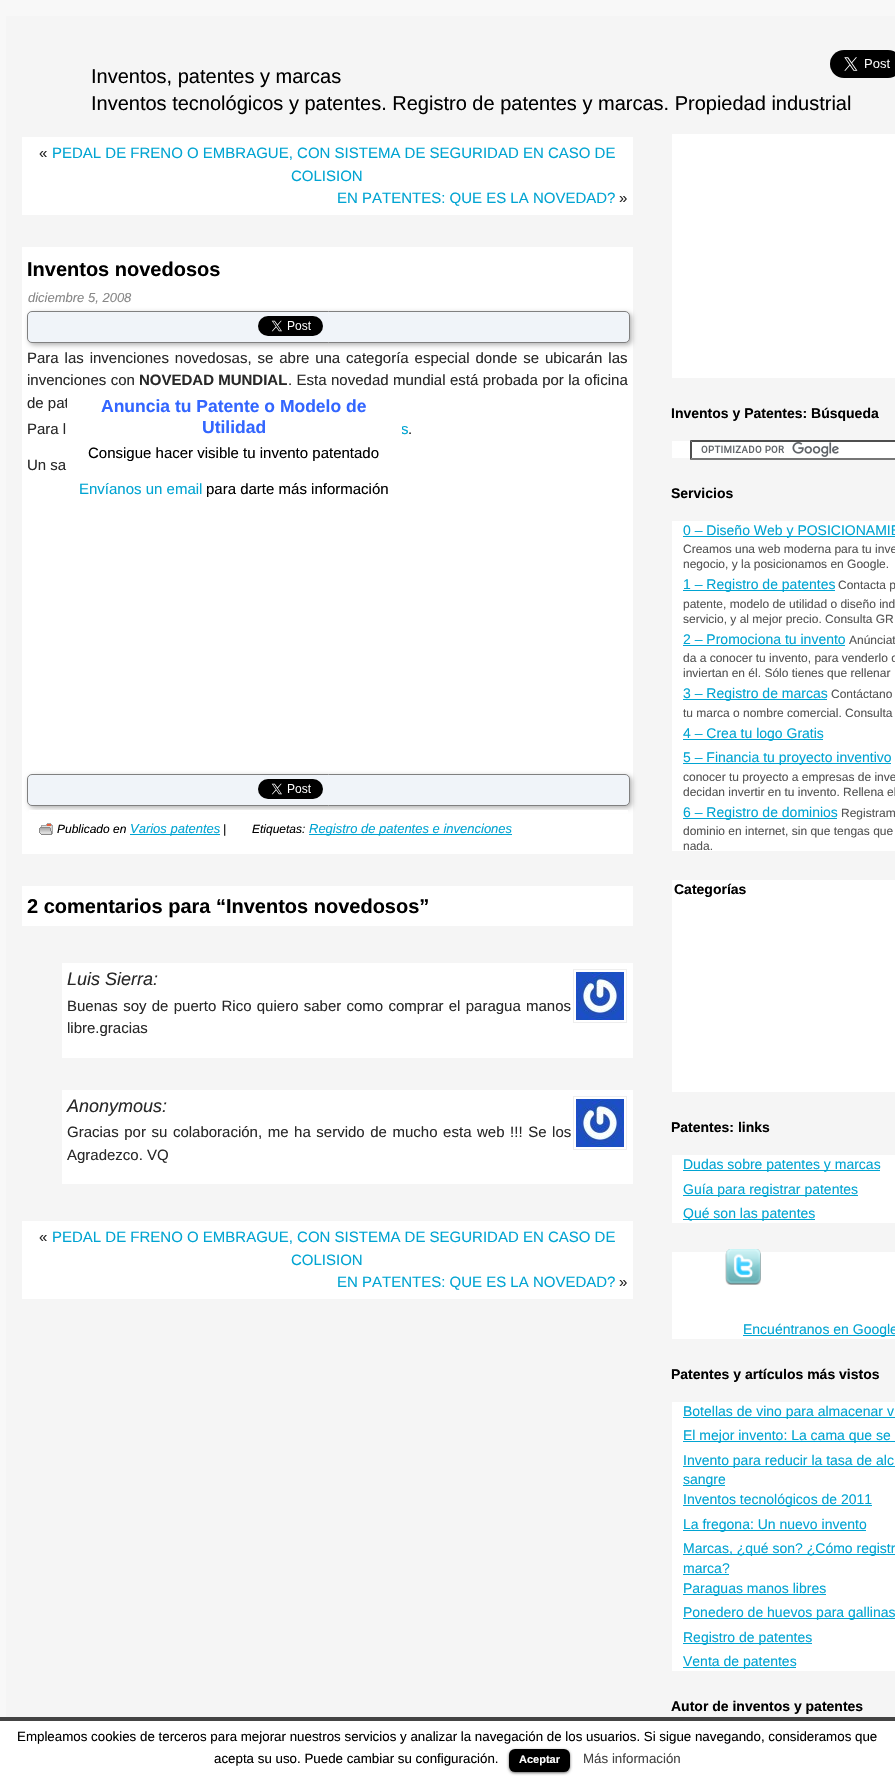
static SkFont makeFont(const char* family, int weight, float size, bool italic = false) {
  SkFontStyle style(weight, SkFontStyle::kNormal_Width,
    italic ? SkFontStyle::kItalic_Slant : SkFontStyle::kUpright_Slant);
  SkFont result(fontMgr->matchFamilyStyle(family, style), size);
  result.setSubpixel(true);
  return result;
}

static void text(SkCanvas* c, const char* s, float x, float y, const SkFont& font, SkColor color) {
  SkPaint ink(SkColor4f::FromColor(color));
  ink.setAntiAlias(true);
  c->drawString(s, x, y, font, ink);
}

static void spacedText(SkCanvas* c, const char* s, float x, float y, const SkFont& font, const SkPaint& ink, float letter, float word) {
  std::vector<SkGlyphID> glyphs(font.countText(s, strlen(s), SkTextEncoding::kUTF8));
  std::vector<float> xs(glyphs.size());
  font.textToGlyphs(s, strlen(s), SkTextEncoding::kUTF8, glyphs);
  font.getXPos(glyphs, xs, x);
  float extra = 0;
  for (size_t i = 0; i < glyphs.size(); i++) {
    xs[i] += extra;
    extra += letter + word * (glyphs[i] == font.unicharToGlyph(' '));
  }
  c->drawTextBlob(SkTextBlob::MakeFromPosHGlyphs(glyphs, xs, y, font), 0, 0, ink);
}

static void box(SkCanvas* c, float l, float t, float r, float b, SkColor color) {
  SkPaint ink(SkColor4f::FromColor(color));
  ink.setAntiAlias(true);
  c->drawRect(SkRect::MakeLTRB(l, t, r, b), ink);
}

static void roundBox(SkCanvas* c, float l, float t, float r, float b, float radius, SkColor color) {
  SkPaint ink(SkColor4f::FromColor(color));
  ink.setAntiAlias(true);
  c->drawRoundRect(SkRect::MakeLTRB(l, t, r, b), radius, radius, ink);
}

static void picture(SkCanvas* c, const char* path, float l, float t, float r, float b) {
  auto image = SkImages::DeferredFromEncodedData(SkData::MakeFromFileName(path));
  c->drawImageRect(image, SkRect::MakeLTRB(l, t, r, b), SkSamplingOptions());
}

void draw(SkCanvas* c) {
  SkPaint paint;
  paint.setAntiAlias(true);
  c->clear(0xfff8f8f8);
  box(c, 6, 16, 895, 1717, 0xfff5f5f5);
  picture(c, "img_01.png", 830, 50, 895, 78);
  SkFont face1 = makeFont("Liberation Sans", 400, 20);
  text(c, "Inventos, patentes y marcas", 91, 83, face1, 0xff000000);
  text(c, "Inventos tecnológicos y patentes. Registro de patentes y marcas. Propiedad industrial", 91, 110, face1, 0xff000000);
  box(c, 22, 137, 633, 215, 0xffffffff);
  SkFont face2 = makeFont("Liberation Sans", 400, 15);
  text(c, "«", 39, 158, face2, 0xff292929);
  text(c, "PEDAL DE FRENO O EMBRAGUE, CON SISTEMA DE SEGURIDAD EN CASO DE", 52, 158, face2, 0xff01a4d2);
  text(c, "COLISION", 291, 181, face2, 0xff01a4d2);
  text(c, "EN PATENTES: QUE ES LA NOVEDAD?", 337, 203, face2, 0xff01a4d2);
  text(c, "»", 619, 203, face2, 0xff292929);
  box(c, 22, 247, 633, 854, 0xffffffff);
  SkFont face3 = makeFont("Liberation Sans", 700, 20);
  text(c, "Inventos novedosos", 27, 276, face3, 0xff000000);
  SkFont face4 = makeFont("Liberation Sans", 400, 13, true);
  text(c, "diciembre 5, 2008", 28, 302, face4, 0xff878787);
  paint.setColor(0x4d000000);
  paint.setMaskFilter(SkMaskFilter::MakeBlur(kNormal_SkBlurStyle, 2.5f));
  c->drawRoundRect(SkRect::MakeLTRB(29, 313, 632, 345), 5, 5, paint);
  paint.setMaskFilter(nullptr);
  paint.setColor(0xfff0f4f9);
  c->drawRoundRect(SkRect::MakeLTRB(27.5f, 311.5f, 629.5f, 342.5f), 4.5f, 4.5f, paint);
  paint.setStyle(SkPaint::kStroke_Style);
  paint.setStrokeWidth(1);
  paint.setColor(0xff808080);
  c->drawRoundRect(SkRect::MakeLTRB(27.5f, 311.5f, 629.5f, 342.5f), 4.5f, 4.5f, paint);
  picture(c, "img_02.png", 258, 316, 323, 336);
  paint.setStyle(SkPaint::kFill_Style);
  paint.setColor(0xff292929);
  spacedText(c, "Para las invenciones novedosas, se abre una categoría especial donde se ubicarán las", 27, 363, face2, paint, 0, 1.75f);
  spacedText(c, "invenciones con", 27, 385, face2, paint, 0, 0.25f);
  SkFont face5 = makeFont("Liberation Sans", 700, 15);
  text(c, "NOVEDAD MUNDIAL", 139, 385, face5, 0xff292929);
  spacedText(c, ". Esta novedad mundial está probada por la oficina", 288, 385, face2, paint, 0, 0.25f);
  text(c, "de pat", 27, 408, face2, 0xff292929);
  text(c, "Para l", 27, 434, face2, 0xff292929);
  text(c, "s", 401, 434, face2, 0xff01a4d2);
  text(c, ".", 408, 434, face2, 0xff292929);
  text(c, "Un sa", 27, 470, face2, 0xff292929);
  paint.setColor(0x4d000000);
  paint.setMaskFilter(SkMaskFilter::MakeBlur(kNormal_SkBlurStyle, 2.5f));
  c->drawRoundRect(SkRect::MakeLTRB(29, 776, 632, 808), 5, 5, paint);
  paint.setMaskFilter(nullptr);
  paint.setColor(0xfff0f4f9);
  c->drawRoundRect(SkRect::MakeLTRB(27.5f, 774.5f, 629.5f, 805.5f), 4.5f, 4.5f, paint);
  paint.setStyle(SkPaint::kStroke_Style);
  paint.setColor(0xff808080);
  c->drawRoundRect(SkRect::MakeLTRB(27.5f, 774.5f, 629.5f, 805.5f), 4.5f, 4.5f, paint);
  picture(c, "img_02.png", 258, 779, 323, 799);
  box(c, 29, 810, 628, 813, 0xffffffff);
  picture(c, "img_03.png", 39, 823, 53, 835);
  SkFont face6 = makeFont("Liberation Sans", 400, 12, true);
  text(c, "Publicado en", 57, 833, face6, 0xff000000);
  box(c, 130, 834, 220, 835, 0xff01a4d2);
  text(c, "Varios patentes", 130, 833, face4, 0xff01a4d2);
  text(c, "|", 223, 833, face6, 0xff000000);
  text(c, "Etiquetas:", 252, 833, face6, 0xff000000);
  box(c, 309, 834, 512, 835, 0xff01a4d2);
  text(c, "Registro de patentes e invenciones", 309, 833, face4, 0xff01a4d2);
  box(c, 22, 886, 633, 926, 0xffffffff);
  text(c, "2 comentarios para “Inventos novedosos”", 27, 913, face3, 0xff000000);
  box(c, 62, 963, 633, 1058, 0xffffffff);
  SkFont face7 = makeFont("Liberation Sans", 400, 18, true);
  text(c, "Luis Sierra:", 67, 985, face7, 0xff292929);
  paint.setColor(0xffeeeeee);
  c->drawRect(SkRect::MakeLTRB(573.5f, 969.5f, 626.5f, 1022.5f), paint);
  picture(c, "img_04.png", 576, 972, 624, 1020);
  paint.setStyle(SkPaint::kFill_Style);
  paint.setColor(0xff292929);
  spacedText(c, "Buenas soy de puerto Rico quiero saber como comprar el paragua manos", 67, 1011, face2, paint, 0, 1.1f);
  text(c, "libre.gracias", 67, 1033, face2, 0xff292929);
  box(c, 62, 1090, 633, 1184, 0xffffffff);
  text(c, "Anonymous:", 67, 1112, face7, 0xff292929);
  paint.setStyle(SkPaint::kStroke_Style);
  paint.setColor(0xffeeeeee);
  c->drawRect(SkRect::MakeLTRB(573.5f, 1096.5f, 626.5f, 1149.5f), paint);
  picture(c, "img_04.png", 576, 1099, 624, 1147);
  paint.setStyle(SkPaint::kFill_Style);
  paint.setColor(0xff292929);
  spacedText(c, "Gracias por su colaboración, me ha servido de mucho esta web !!! Se los", 67, 1137, face2, paint, 0, 1.4f);
  text(c, "Agradezco. VQ", 67, 1160, face2, 0xff292929);
  box(c, 22, 1221, 633, 1299, 0xffffffff);
  text(c, "«", 39, 1242, face2, 0xff292929);
  text(c, "PEDAL DE FRENO O EMBRAGUE, CON SISTEMA DE SEGURIDAD EN CASO DE", 52, 1242, face2, 0xff01a4d2);
  text(c, "COLISION", 291, 1265, face2, 0xff01a4d2);
  text(c, "EN PATENTES: QUE ES LA NOVEDAD?", 337, 1287, face2, 0xff01a4d2);
  text(c, "»", 619, 1287, face2, 0xff292929);
  box(c, 672, 134, 895, 378, 0xffffffff);
  SkFont face8 = makeFont("Liberation Sans", 700, 14);
  text(c, "Inventos y Patentes: Búsqueda", 671, 418, face8, 0xff000000);
  box(c, 672, 441, 690, 458, 0xffffffff);
  box(c, 690, 440, 895, 460, 0xffffffff);
  picture(c, "img_05.png", 701, 442, 839, 457);
  paint.setColor(0xff4f4f4f);
  c->drawPath(SkPathBuilder().moveTo(690, 440).lineTo(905, 440).lineTo(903, 442).lineTo(692, 442).close().detach(), paint);
  paint.setColor(0xff767676);
  c->drawPath(SkPathBuilder().moveTo(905, 460).lineTo(690, 460).lineTo(692, 458).lineTo(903, 458).close().detach(), paint);
  paint.setColor(0xff4f4f4f);
  c->drawPath(SkPathBuilder().moveTo(690, 460).lineTo(690, 440).lineTo(692, 442).lineTo(692, 458).close().detach(), paint);
  text(c, "Servicios", 671, 498, face8, 0xff000000);
  box(c, 672, 521, 895, 851, 0xffffffff);
  box(c, 683, 536, 895, 537, 0xff01a4d2);
  SkFont face9 = makeFont("Liberation Sans", 400, 14);
  text(c, "0 – Diseño Web y POSICIONAMIE", 683, 535, face9, 0xff01a4d2);
  SkFont face10 = makeFont("Liberation Sans", 400, 12);
  text(c, "Creamos una web moderna para tu inve", 683, 553, face10, 0xff545454);
  text(c, "negocio, y la posicionamos en Google.", 683, 568, face10, 0xff545454);
  box(c, 683, 590, 835, 591, 0xff01a4d2);
  text(c, "1 – Registro de patentes", 683, 589, face9, 0xff01a4d2);
  text(c, "Contacta p", 838, 589, face10, 0xff545454);
  text(c, "patente, modelo de utilidad o diseño ind", 683, 608, face10, 0xff545454);
  text(c, "servicio, y al mejor precio. Consulta GR", 683, 623, face10, 0xff545454);
  text(c, "2 – Promociona tu invento", 683, 644, face9, 0xff01a4d2);
  box(c, 683, 645, 845, 646, 0xff01a4d2);
  text(c, "Anúnciat", 849, 644, face10, 0xff545454);
  text(c, "da a conocer tu invento, para venderlo o", 683, 662, face10, 0xff545454);
  text(c, "inviertan en él. Sólo tienes que rellenar", 683, 677, face10, 0xff545454);
  box(c, 683, 699, 827, 700, 0xff01a4d2);
  text(c, "3 – Registro de marcas", 683, 698, face9, 0xff01a4d2);
  text(c, "Contáctano", 831, 698, face10, 0xff545454);
  text(c, "tu marca o nombre comercial. Consulta", 683, 717, face10, 0xff545454);
  box(c, 683, 739, 823, 740, 0xff01a4d2);
  text(c, "4 – Crea tu logo Gratis", 683, 738, face9, 0xff01a4d2);
  box(c, 683, 763, 891, 764, 0xff01a4d2);
  text(c, "5 – Financia tu proyecto inventivo", 683, 762, face9, 0xff01a4d2);
  text(c, "conocer tu proyecto a empresas de inve", 683, 781, face10, 0xff545454);
  text(c, "decidan invertir en tu invento. Rellena el", 683, 796, face10, 0xff545454);
  box(c, 683, 818, 837, 819, 0xff01a4d2);
  text(c, "6 – Registro de dominios", 683, 817, face9, 0xff01a4d2);
  text(c, "Registram", 841, 817, face10, 0xff545454);
  text(c, "dominio en internet, sin que tengas que", 683, 835, face10, 0xff545454);
  text(c, "nada.", 683, 850, face10, 0xff545454);
  box(c, 672, 880, 895, 1092, 0xffffffff);
  text(c, "Categorías", 674, 894, face8, 0xff000000);
  text(c, "Patentes: links", 671, 1132, face8, 0xff000000);
  box(c, 672, 1155, 895, 1223, 0xffffffff);
  box(c, 683, 1170, 880, 1171, 0xff01a4d2);
  text(c, "Dudas sobre patentes y marcas", 683, 1169, face9, 0xff01a4d2);
  box(c, 683, 1195, 858, 1196, 0xff01a4d2);
  text(c, "Guía para registrar patentes", 683, 1194, face9, 0xff01a4d2);
  box(c, 683, 1219, 815, 1220, 0xff01a4d2);
  text(c, "Qué son las patentes", 683, 1218, face9, 0xff01a4d2);
  box(c, 672, 1252, 895, 1339, 0xffffffff);
  picture(c, "img_06.png", 725, 1249, 761, 1285);
  box(c, 743, 1335, 895, 1336, 0xff01a4d2);
  text(c, "Encuéntranos en Google", 743, 1334, face9, 0xff01a4d2);
  text(c, "Patentes y artículos más vistos", 671, 1379, face8, 0xff000000);
  box(c, 672, 1402, 895, 1671, 0xffffffff);
  box(c, 683, 1417, 895, 1418, 0xff01a4d2);
  text(c, "Botellas de vino para almacenar v", 683, 1416, face9, 0xff01a4d2);
  box(c, 683, 1441, 895, 1442, 0xff01a4d2);
  text(c, "El mejor invento: La cama que se", 683, 1440, face9, 0xff01a4d2);
  box(c, 683, 1466, 895, 1467, 0xff01a4d2);
  text(c, "Invento para reducir la tasa de alc", 683, 1465, face9, 0xff01a4d2);
  box(c, 683, 1485, 725, 1486, 0xff01a4d2);
  text(c, "sangre", 683, 1484, face9, 0xff01a4d2);
  box(c, 683, 1505, 872, 1506, 0xff01a4d2);
  text(c, "Inventos tecnológicos de 2011", 683, 1504, face9, 0xff01a4d2);
  box(c, 683, 1530, 866, 1531, 0xff01a4d2);
  text(c, "La fregona: Un nuevo invento", 683, 1529, face9, 0xff01a4d2);
  box(c, 683, 1554, 895, 1555, 0xff01a4d2);
  text(c, "Marcas, ¿qué son? ¿Cómo registr", 683, 1553, face9, 0xff01a4d2);
  text(c, "marca?", 683, 1573, face9, 0xff01a4d2);
  box(c, 683, 1574, 729, 1575, 0xff01a4d2);
  box(c, 683, 1594, 826, 1595, 0xff01a4d2);
  text(c, "Paraguas manos libres", 683, 1593, face9, 0xff01a4d2);
  box(c, 683, 1618, 895, 1619, 0xff01a4d2);
  text(c, "Ponedero de huevos para gallinas", 683, 1617, face9, 0xff01a4d2);
  box(c, 683, 1643, 812, 1644, 0xff01a4d2);
  text(c, "Registro de patentes", 683, 1642, face9, 0xff01a4d2);
  box(c, 683, 1667, 796, 1668, 0xff01a4d2);
  text(c, "Venta de patentes", 683, 1666, face9, 0xff01a4d2);
  text(c, "Autor de inventos y patentes", 671, 1711, face8, 0xff000000);
  box(c, 67, 400, 402, 434, 0xffffffff);
  SkFont face11 = makeFont("Liberation Sans", 700, 17.5f);
  text(c, "Anuncia tu Patente o Modelo de", 101, 412, face11, 0xff3366ff);
  text(c, "Utilidad", 202, 433, face11, 0xff3366ff);
  text(c, "Consigue hacer visible tu invento patentado", 88, 458, face2, 0xff000000);
  text(c, "Envíanos un email", 79, 494, face2, 0xff01a4d2);
  text(c, "para darte más información", 206, 494, face2, 0xff000000);
  box(c, 0, 1721, 895, 1777, 0xffffffff);
  box(c, 0, 1717, 895, 1721, 0xff444444);
  SkFont face12 = makeFont("Liberation Sans", 400, 13.33f);
  text(c, "Empleamos cookies de terceros para mejorar nuestros servicios y analizar la navegación de los usuarios. Si sigue navegando, consideramos que", 17, 1741, face12, 0xff000000);
  text(c, "acepta su uso. Puede cambiar su configuración.", 214, 1763, face12, 0xff000000);
  paint.setColor(0x99000000);
  paint.setMaskFilter(SkMaskFilter::MakeBlur(kNormal_SkBlurStyle, 1.5f));
  c->drawRoundRect(SkRect::MakeLTRB(509, 1750, 570, 1773), 6, 6, paint);
  paint.setMaskFilter(nullptr);
  roundBox(c, 509, 1749, 570, 1772, 6, 0xff000000);
  box(c, 512, 1771, 567, 1772, 0x40000000);
  SkFont face13 = makeFont("Liberation Sans", 700, 11);
  text(c, "Aceptar", 519, 1763, face13, 0xffffffff);
  text(c, "Más información", 583, 1763, face12, 0xff444444);
}
